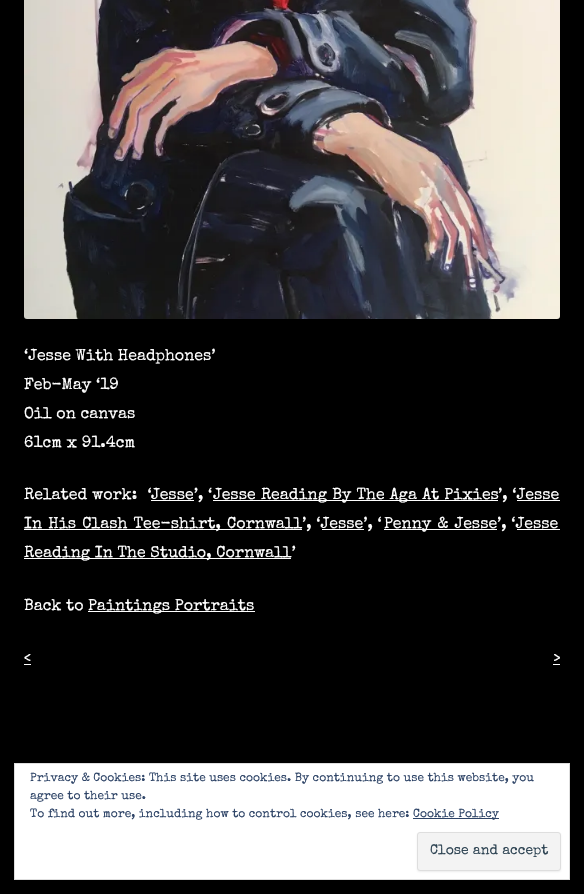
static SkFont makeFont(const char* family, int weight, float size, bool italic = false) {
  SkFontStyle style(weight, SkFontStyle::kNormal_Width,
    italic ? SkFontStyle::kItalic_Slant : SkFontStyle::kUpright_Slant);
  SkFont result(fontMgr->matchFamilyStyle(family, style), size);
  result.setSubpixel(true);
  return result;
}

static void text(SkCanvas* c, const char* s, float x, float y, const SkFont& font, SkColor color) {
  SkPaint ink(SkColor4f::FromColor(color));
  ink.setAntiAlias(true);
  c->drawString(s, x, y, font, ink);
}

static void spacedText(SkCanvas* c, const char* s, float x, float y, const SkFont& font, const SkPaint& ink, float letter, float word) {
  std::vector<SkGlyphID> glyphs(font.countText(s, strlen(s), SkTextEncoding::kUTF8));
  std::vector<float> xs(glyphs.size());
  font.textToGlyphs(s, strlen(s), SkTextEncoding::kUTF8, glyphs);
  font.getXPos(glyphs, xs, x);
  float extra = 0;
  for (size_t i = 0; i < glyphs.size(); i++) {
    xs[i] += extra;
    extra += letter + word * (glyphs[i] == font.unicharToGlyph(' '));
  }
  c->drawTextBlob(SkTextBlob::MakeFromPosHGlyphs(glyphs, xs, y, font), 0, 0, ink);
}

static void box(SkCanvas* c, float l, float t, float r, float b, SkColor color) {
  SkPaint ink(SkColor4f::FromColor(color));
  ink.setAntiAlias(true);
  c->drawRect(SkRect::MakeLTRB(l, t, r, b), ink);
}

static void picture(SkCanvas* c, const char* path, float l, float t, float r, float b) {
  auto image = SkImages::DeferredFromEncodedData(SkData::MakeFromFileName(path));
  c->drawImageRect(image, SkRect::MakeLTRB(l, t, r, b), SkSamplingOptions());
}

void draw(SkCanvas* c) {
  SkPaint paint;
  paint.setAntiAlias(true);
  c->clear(0xff000000);
  picture(c, "img_01.png", 24, 0, 560, 319);
  SkFont face1 = makeFont("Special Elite", 400, 16);
  text(c, "‘Jesse With Headphones’", 24, 360, face1, 0xffffffff);
  text(c, "Feb-May ‘19", 24, 389, face1, 0xffffffff);
  text(c, "Oil on canvas", 24, 418, face1, 0xffffffff);
  text(c, "61cm x 91.4cm", 24, 447, face1, 0xffffffff);
  paint.setColor(0xffffffff);
  spacedText(c, "Related work:  ‘", 24, 499, face1, paint, 0, 0.5f);
  box(c, 151, 500, 194, 501, 0xffffffff);
  text(c, "Jesse’, ‘", 151, 499, face1, 0xffffffff);
  box(c, 213, 500, 498, 501, 0xffffffff);
  spacedText(c, "Jesse Reading By The Aga At Pixies", 213, 499, face1, paint, 0, 0.5f);
  text(c, "’, ‘Jesse", 498, 499, face1, 0xffffffff);
  box(c, 24, 529, 302, 530, 0xffffffff);
  spacedText(c, "In His Clash Tee-shirt, Cornwall", 24, 528, face1, paint, 0, 1.5f);
  box(c, 517, 500, 560, 501, 0xffffffff);
  text(c, "’, ‘Jesse’, ‘", 302, 528, face1, 0xffffffff);
  box(c, 384, 529, 497, 530, 0xffffffff);
  spacedText(c, "Penny & Jesse", 384, 528, face1, paint, 0, 1.5f);
  text(c, "’, ‘Jesse", 497, 528, face1, 0xffffffff);
  box(c, 322, 529, 364, 530, 0xffffffff);
  box(c, 24, 558, 291, 559, 0xffffffff);
  text(c, "Reading In The Studio, Cornwall’", 24, 557, face1, 0xffffffff);
  box(c, 517, 529, 560, 530, 0xffffffff);
  text(c, "Back to", 24, 610, face1, 0xffffffff);
  box(c, 88, 611, 255, 612, 0xffffffff);
  text(c, "Paintings Portraits", 88, 610, face1, 0xffffffff);
  text(c, "<", 24, 663, face1, 0xffffffff);
  box(c, 24, 664, 31, 665, 0xffffffff);
  text(c, ">", 553, 663, face1, 0xffffffff);
  box(c, 553, 664, 560, 665, 0xffffffff);
  c->drawRect(SkRect::MakeLTRB(14.5f, 763.5f, 569.5f, 879.5f), paint);
  paint.setStyle(SkPaint::kStroke_Style);
  paint.setStrokeWidth(1);
  paint.setColor(0xffdedede);
  c->drawRect(SkRect::MakeLTRB(14.5f, 763.5f, 569.5f, 879.5f), paint);
  SkFont face2 = makeFont("Special Elite", 400, 12);
  text(c, "Privacy & Cookies: This site uses cookies. By continuing to use this website, you", 30, 781, face2, 0xff2e4467);
  text(c, "agree to their use.", 30, 799, face2, 0xff2e4467);
  text(c, "To find out more, including how to control cookies, see here:", 30, 817, face2, 0xff2e4467);
  box(c, 413, 818, 499, 819, 0xff2e4467);
  text(c, "Cookie Policy", 413, 817, face2, 0xff2e4467);
  paint.setStyle(SkPaint::kFill_Style);
  paint.setColor(0x1a404040);
  paint.setMaskFilter(SkMaskFilter::MakeBlur(kNormal_SkBlurStyle, 1));
  c->drawRoundRect(SkRect::MakeLTRB(417, 833, 561, 872), 3, 3, paint);
  paint.setMaskFilter(nullptr);
  paint.setColor(0xfff3f3f3);
  c->drawRoundRect(SkRect::MakeLTRB(417.5f, 832.5f, 560.5f, 870.5f), 2.5f, 2.5f, paint);
  paint.setStyle(SkPaint::kStroke_Style);
  paint.setColor(0xffdedede);
  c->drawRoundRect(SkRect::MakeLTRB(417.5f, 832.5f, 560.5f, 870.5f), 2.5f, 2.5f, paint);
  SkFont face3 = makeFont("Special Elite", 400, 14);
  text(c, "Close and accept", 430, 854, face3, 0xff2e4453);
}
